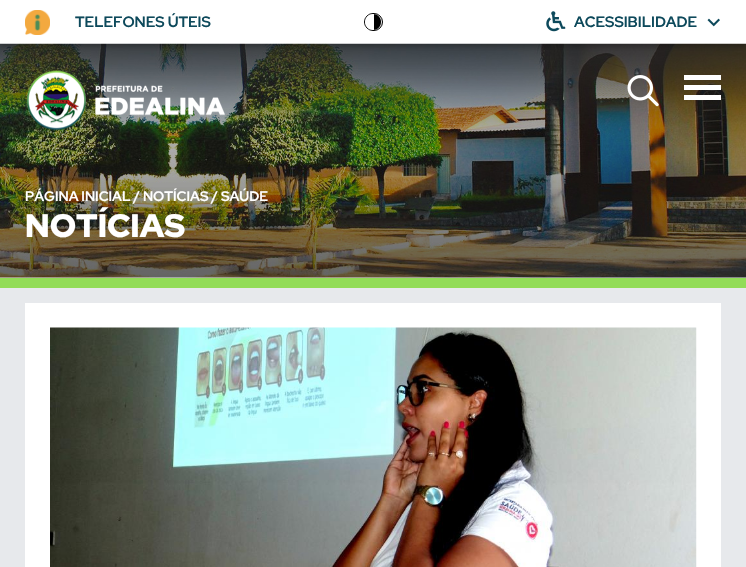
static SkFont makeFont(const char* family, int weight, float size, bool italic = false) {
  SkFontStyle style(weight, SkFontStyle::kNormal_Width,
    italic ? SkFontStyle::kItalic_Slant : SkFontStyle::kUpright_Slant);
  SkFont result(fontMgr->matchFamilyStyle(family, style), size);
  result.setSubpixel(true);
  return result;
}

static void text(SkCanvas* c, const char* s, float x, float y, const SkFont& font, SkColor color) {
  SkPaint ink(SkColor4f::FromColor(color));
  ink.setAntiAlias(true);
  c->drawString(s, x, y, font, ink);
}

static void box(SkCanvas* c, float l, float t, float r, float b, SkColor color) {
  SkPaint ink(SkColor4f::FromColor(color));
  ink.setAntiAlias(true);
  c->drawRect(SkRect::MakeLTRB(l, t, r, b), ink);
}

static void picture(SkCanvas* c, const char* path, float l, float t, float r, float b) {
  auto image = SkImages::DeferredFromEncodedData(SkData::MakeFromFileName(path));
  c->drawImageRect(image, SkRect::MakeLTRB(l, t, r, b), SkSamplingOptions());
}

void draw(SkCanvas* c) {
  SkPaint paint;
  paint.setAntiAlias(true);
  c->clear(0xffe7e9ec);
  box(c, 0, 0, 746, 44, 0xffffffff);
  picture(c, "img_04.png", 0, 43, 746, 278);
  c->save();
  c->clipPath(SkPathBuilder(SkPathFillType::kEvenOdd).moveTo(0, 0).lineTo(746, 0).lineTo(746, 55).lineTo(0, 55).close().moveTo(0, 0).lineTo(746, 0).lineTo(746, 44).lineTo(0, 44).close().detach(), true);
  paint.setColor(0x40000000);
  paint.setMaskFilter(SkMaskFilter::MakeBlur(kNormal_SkBlurStyle, 2.5f));
  c->drawRect(SkRect::MakeLTRB(0, 3, 746, 46), paint);
  paint.setMaskFilter(nullptr);
  c->restore();
  picture(c, "img_01.png", 25, 10, 50, 35);
  SkFont face1 = makeFont("Red Hat Display", 700, 15);
  text(c, "TELEFONES ÚTEIS", 75, 27, face1, 0xff0d495b);
  paint.setColor(0xffefefef);
  c->drawRoundRect(SkRect::MakeLTRB(364.5f, 13.5f, 382.5f, 30.5f), 8.5f, 8.5f, paint);
  paint.setStyle(SkPaint::kStroke_Style);
  paint.setStrokeWidth(1);
  paint.setColor(0xff000000);
  c->drawRoundRect(SkRect::MakeLTRB(364.5f, 13.5f, 382.5f, 30.5f), 8.5f, 8.5f, paint);
  c->save();
  c->clipPath(SkPathBuilder().moveTo(373, 14).cubicTo(377.5f, 14, 381, 17.5f, 381, 22).cubicTo(381, 26.5f, 377.5f, 30, 373, 30).cubicTo(368.5f, 30, 365, 26.5f, 365, 22).cubicTo(365, 17.5f, 368.5f, 14, 373, 14).close().detach(), true);
  paint.setStyle(SkPaint::kFill_Style);
  paint.setColor(0xffffffff);
  c->drawPath(SkPathBuilder().moveTo(373, 14).lineTo(374, 14).lineTo(374, 30).lineTo(373, 30).cubicTo(368.5f, 30, 365, 26.5f, 365, 22).cubicTo(365, 17.5f, 368.5f, 14, 373, 14).close().detach(), paint);
  box(c, 374, 14, 381, 30, 0xff000000);
  c->restore();
  picture(c, "img_02.png", 546, 11, 566, 32);
  text(c, "ACESSIBILIDADE", 574, 27, face1, 0xff0d495b);
  picture(c, "img_03.png", 707, 18, 720, 27);
  box(c, 0, 278, 746, 288, 0xff92dc57);
  picture(c, "img_05.png", 26, 70, 225, 131);
  picture(c, "img_06.png", 627, 75, 659, 107);
  box(c, 684, 75, 721, 80, 0xffffffff);
  box(c, 684, 85, 721, 90, 0xffffffff);
  box(c, 684, 95, 721, 100, 0xffffffff);
  SkFont face2 = makeFont("Red Hat Display", 700, 13.75f);
  text(c, "PÁGINA INICIAL / NOTÍCIAS / SAÚDE", 25, 201, face2, 0xffffffff);
  SkFont face3 = makeFont("Red Hat Display", 900, 32.5f);
  text(c, "NOTÍCIAS", 25, 237, face3, 0xffffffff);
  box(c, 25, 303, 721, 567, 0xffffffff);
  picture(c, "img_07.png", 50, 327, 697, 567);
}
